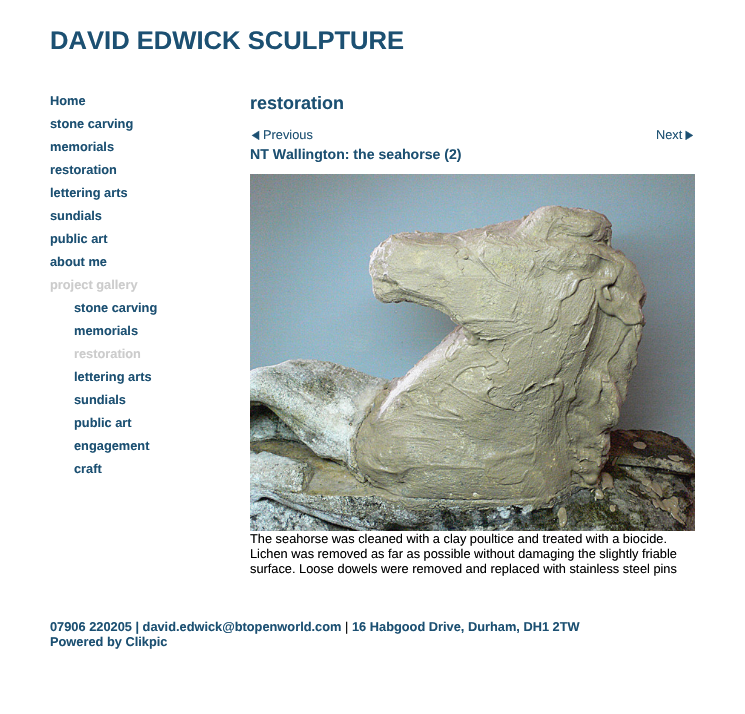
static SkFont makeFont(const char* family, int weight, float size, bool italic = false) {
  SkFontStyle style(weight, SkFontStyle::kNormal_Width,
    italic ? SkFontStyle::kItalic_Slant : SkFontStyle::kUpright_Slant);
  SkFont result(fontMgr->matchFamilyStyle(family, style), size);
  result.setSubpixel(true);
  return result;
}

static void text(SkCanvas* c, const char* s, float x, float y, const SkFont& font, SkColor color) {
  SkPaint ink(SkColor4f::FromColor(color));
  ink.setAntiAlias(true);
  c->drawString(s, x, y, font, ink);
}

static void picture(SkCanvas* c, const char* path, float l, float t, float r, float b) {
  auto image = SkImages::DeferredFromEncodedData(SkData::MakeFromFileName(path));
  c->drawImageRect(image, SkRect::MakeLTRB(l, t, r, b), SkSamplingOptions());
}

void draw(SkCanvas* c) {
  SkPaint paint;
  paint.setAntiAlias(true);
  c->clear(0xffffffff);
  SkFont face1 = makeFont("Liberation Sans", 700, 25.6f);
  text(c, "DAVID EDWICK SCULPTURE", 50, 49, face1, 0xff1c5072);
  SkFont face2 = makeFont("Liberation Sans", 700, 12.8f);
  text(c, "Home", 50, 105, face2, 0xff1c5072);
  text(c, "stone carving", 50, 128, face2, 0xff1c5072);
  text(c, "memorials", 50, 151, face2, 0xff1c5072);
  text(c, "restoration", 50, 174, face2, 0xff1c5072);
  text(c, "lettering arts", 50, 197, face2, 0xff1c5072);
  text(c, "sundials", 50, 220, face2, 0xff1c5072);
  text(c, "public art", 50, 243, face2, 0xff1c5072);
  text(c, "about me", 50, 266, face2, 0xff1c5072);
  text(c, "project gallery", 50, 289, face2, 0xffcccccc);
  SkFont face3 = makeFont("Liberation Sans", 700, 18);
  text(c, "restoration", 250, 109, face3, 0xff1c5072);
  picture(c, "img_01.png", 251, 130, 260, 140);
  SkFont face4 = makeFont("Liberation Sans", 400, 12.8f);
  text(c, "Previous", 263, 139, face4, 0xff1c5072);
  text(c, "Next", 656, 139, face4, 0xff1c5072);
  picture(c, "img_02.png", 685, 130, 693, 140);
  SkFont face5 = makeFont("Liberation Sans", 700, 14.1f);
  text(c, "NT Wallington: the seahorse (2)", 250, 159, face5, 0xff1c5072);
  picture(c, "img_03.png", 250, 174, 695, 531);
  text(c, "The seahorse was cleaned with a clay poultice and treated with a biocide.", 250, 543, face4, 0xff000000);
  text(c, "Lichen was removed as far as possible without damaging the slightly friable", 250, 558, face4, 0xff000000);
  text(c, "surface. Loose dowels were removed and replaced with stainless steel pins", 250, 573, face4, 0xff000000);
  text(c, "stone carving", 74, 312, face2, 0xff1c5072);
  text(c, "memorials", 74, 335, face2, 0xff1c5072);
  text(c, "restoration", 74, 358, face2, 0xffcccccc);
  text(c, "lettering arts", 74, 381, face2, 0xff1c5072);
  text(c, "sundials", 74, 404, face2, 0xff1c5072);
  text(c, "public art", 74, 427, face2, 0xff1c5072);
  text(c, "engagement", 74, 450, face2, 0xff1c5072);
  text(c, "craft", 74, 473, face2, 0xff1c5072);
  text(c, "07906 220205 | david.edwick@btopenworld.com", 50, 631, face2, 0xff1c5072);
  text(c, "|", 345, 631, face4, 0xff000000);
  text(c, "16 Habgood Drive, Durham, DH1 2TW", 352, 631, face2, 0xff1c5072);
  text(c, "Powered by Clikpic", 50, 646, face2, 0xff1c5072);
}
